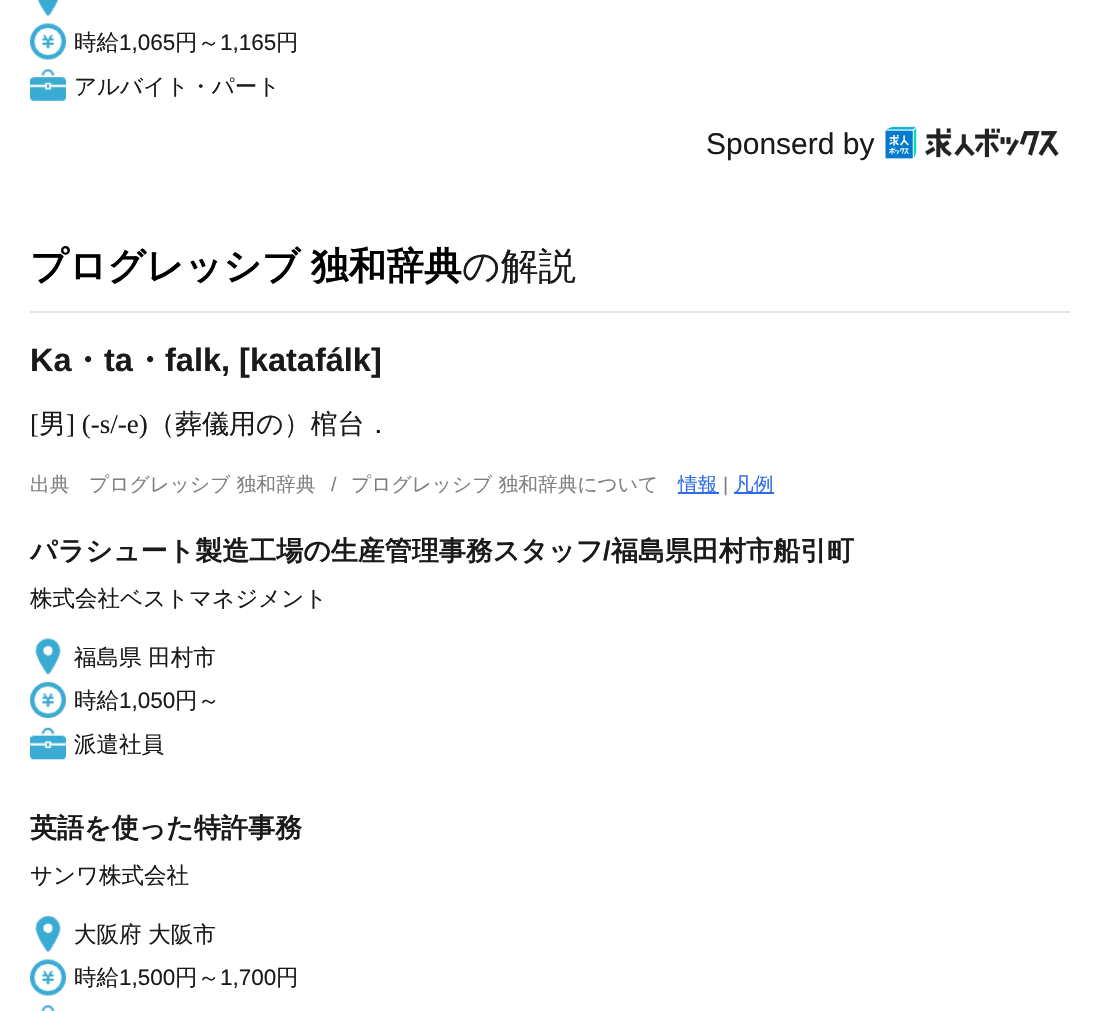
static SkFont makeFont(const char* family, int weight, float size, bool italic = false) {
  SkFontStyle style(weight, SkFontStyle::kNormal_Width,
    italic ? SkFontStyle::kItalic_Slant : SkFontStyle::kUpright_Slant);
  SkFont result(fontMgr->matchFamilyStyle(family, style), size);
  result.setSubpixel(true);
  return result;
}

static void text(SkCanvas* c, const char* s, float x, float y, const SkFont& font, SkColor color) {
  SkPaint ink(SkColor4f::FromColor(color));
  ink.setAntiAlias(true);
  c->drawString(s, x, y, font, ink);
}

static void spacedText(SkCanvas* c, const char* s, float x, float y, const SkFont& font, const SkPaint& ink, float letter, float word) {
  std::vector<SkGlyphID> glyphs(font.countText(s, strlen(s), SkTextEncoding::kUTF8));
  std::vector<float> xs(glyphs.size());
  font.textToGlyphs(s, strlen(s), SkTextEncoding::kUTF8, glyphs);
  font.getXPos(glyphs, xs, x);
  float extra = 0;
  for (size_t i = 0; i < glyphs.size(); i++) {
    xs[i] += extra;
    extra += letter + word * (glyphs[i] == font.unicharToGlyph(' '));
  }
  c->drawTextBlob(SkTextBlob::MakeFromPosHGlyphs(glyphs, xs, y, font), 0, 0, ink);
}

static void box(SkCanvas* c, float l, float t, float r, float b, SkColor color) {
  SkPaint ink(SkColor4f::FromColor(color));
  ink.setAntiAlias(true);
  c->drawRect(SkRect::MakeLTRB(l, t, r, b), ink);
}

static void picture(SkCanvas* c, const char* path, float l, float t, float r, float b) {
  auto image = SkImages::DeferredFromEncodedData(SkData::MakeFromFileName(path));
  c->drawImageRect(image, SkRect::MakeLTRB(l, t, r, b), SkSamplingOptions());
}

void draw(SkCanvas* c) {
  SkPaint paint;
  paint.setAntiAlias(true);
  c->clear(0xffffffff);
  picture(c, "img_01.png", 37, 0, 59, 16);
  picture(c, "img_02.png", 30, 23, 66, 60);
  SkFont face1 = makeFont("WenQuanYi Zen Hei", 500, 22.5f);
  text(c, "時給", 74, 50, face1, 0xff1a1a1a);
  SkFont face2 = makeFont("Liberation Sans", 400, 22.5f);
  text(c, "1,065", 119, 50, face2, 0xff1a1a1a);
  text(c, "円～", 175, 50, face1, 0xff1a1a1a);
  text(c, "1,165", 220, 50, face2, 0xff1a1a1a);
  text(c, "円", 276, 50, face1, 0xff1a1a1a);
  picture(c, "img_03.png", 30, 69, 66, 101);
  text(c, "アルバイト・パート", 74, 94, face1, 0xff1a1a1a);
  SkFont face3 = makeFont("Liberation Sans", 400, 30);
  text(c, "Sponserd by", 706, 154, face3, 0xff1a1a1a);
  picture(c, "img_04.png", 874, 126, 1059, 159);
  box(c, 30, 311, 1070, 313, 0xffe6e6e6);
  SkFont face4 = makeFont("WenQuanYi Zen Hei", 700, 37.75f);
  paint.setColor(0xff000000);
  spacedText(c, "プログレッシブ 独和辞典", 30, 279, face4, paint, 0, -1);
  SkFont face5 = makeFont("WenQuanYi Zen Hei", 500, 37.75f);
  text(c, "の解説", 462, 279, face5, 0xff1a1a1a);
  SkFont face6 = makeFont("Liberation Sans", 700, 32.5f);
  text(c, "Ka", 30, 371, face6, 0xff1a1a1a);
  SkFont face7 = makeFont("WenQuanYi Zen Hei", 700, 32.5f);
  text(c, "・", 71, 371, face7, 0xff1a1a1a);
  text(c, "ta", 104, 371, face6, 0xff1a1a1a);
  text(c, "・", 133, 371, face7, 0xff1a1a1a);
  text(c, "falk, [katafálk]", 165, 371, face6, 0xff1a1a1a);
  SkFont face8 = makeFont("Liberation Serif", 400, 27);
  text(c, "[", 30, 433, face8, 0xff1a1a1a);
  SkFont face9 = makeFont("WenQuanYi Zen Hei", 500, 27);
  text(c, "男", 39, 433, face9, 0xff1a1a1a);
  text(c, "] (-s/-e)", 66, 433, face8, 0xff1a1a1a);
  text(c, "（葬儀用の）棺台．", 148, 433, face9, 0xff1a1a1a);
  SkFont face10 = makeFont("WenQuanYi Zen Hei", 500, 19.75f);
  text(c, "出典", 30, 491, face10, 0xff808080);
  text(c, "プログレッシブ 独和辞典", 89, 491, face10, 0xff808080);
  SkFont face11 = makeFont("Liberation Sans", 400, 19.75f);
  text(c, "/", 331, 491, face11, 0xff808080);
  text(c, "プログレッシブ 独和辞典について", 351, 491, face10, 0xff808080);
  box(c, 678, 492, 719, 494, 0xff2f6be6);
  text(c, "情報", 678, 491, face10, 0xff2f6be6);
  text(c, "|", 723, 491, face11, 0xff808080);
  box(c, 734, 492, 774, 494, 0xff2f6be6);
  text(c, "凡例", 734, 491, face10, 0xff2f6be6);
  SkFont face12 = makeFont("WenQuanYi Zen Hei", 700, 27);
  text(c, "パラシュート製造工場の生産管理事務スタッフ", 30, 560, face12, 0xff1a1a1a);
  SkFont face13 = makeFont("Liberation Sans", 700, 27);
  text(c, "/", 603, 560, face13, 0xff1a1a1a);
  text(c, "福島県田村市船引町", 611, 560, face12, 0xff1a1a1a);
  text(c, "株式会社ベストマネジメント", 30, 606, face1, 0xff1a1a1a);
  picture(c, "img_05.png", 35, 638, 61, 675);
  text(c, "福島県 田村市", 74, 665, face1, 0xff1a1a1a);
  picture(c, "img_06.png", 30, 682, 66, 718);
  text(c, "時給", 74, 708, face1, 0xff1a1a1a);
  text(c, "1,050", 119, 708, face2, 0xff1a1a1a);
  text(c, "円～", 175, 708, face1, 0xff1a1a1a);
  picture(c, "img_07.png", 30, 727, 66, 760);
  text(c, "派遣社員", 74, 752, face1, 0xff1a1a1a);
  text(c, "英語を使った特許事務", 30, 837, face12, 0xff1a1a1a);
  text(c, "サンワ株式会社", 30, 883, face1, 0xff1a1a1a);
  picture(c, "img_08.png", 35, 916, 61, 952);
  text(c, "大阪府 大阪市", 74, 942, face1, 0xff1a1a1a);
  picture(c, "img_02.png", 30, 959, 66, 996);
  text(c, "時給", 74, 985, face1, 0xff1a1a1a);
  text(c, "1,500", 119, 985, face2, 0xff1a1a1a);
  text(c, "円～", 175, 985, face1, 0xff1a1a1a);
  text(c, "1,700", 220, 985, face2, 0xff1a1a1a);
  text(c, "円", 276, 985, face1, 0xff1a1a1a);
  picture(c, "img_09.png", 41, 1005, 55, 1011);
}
